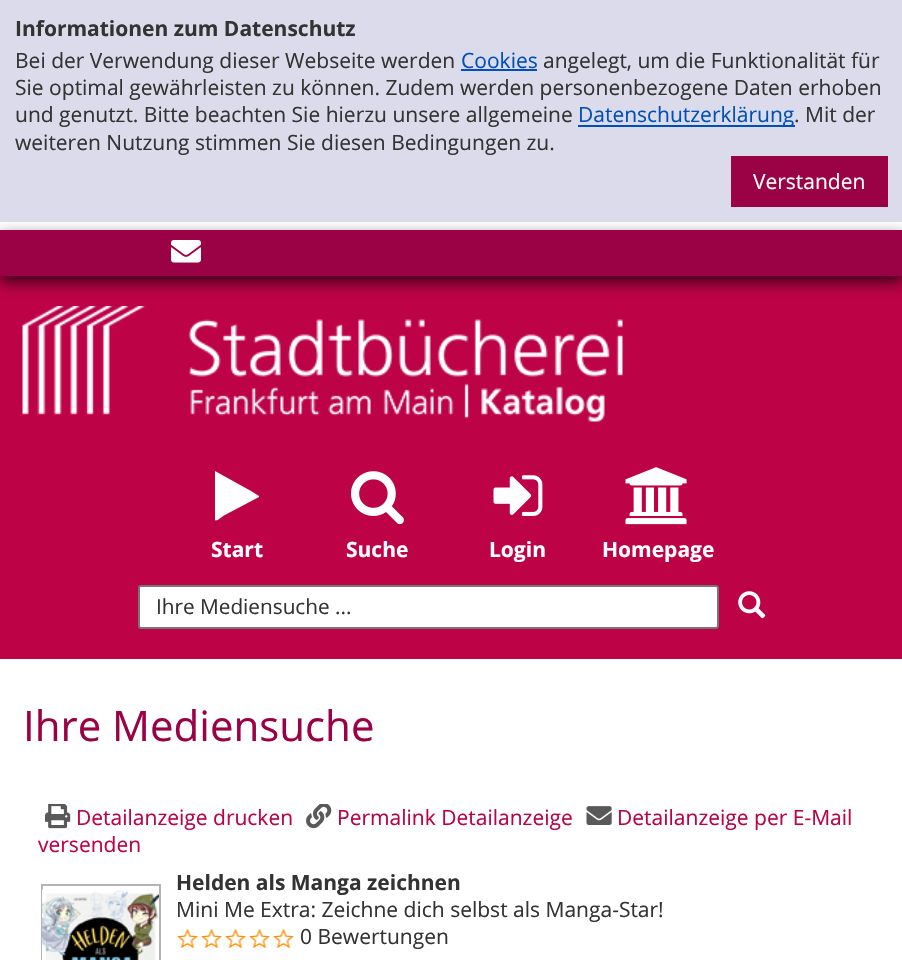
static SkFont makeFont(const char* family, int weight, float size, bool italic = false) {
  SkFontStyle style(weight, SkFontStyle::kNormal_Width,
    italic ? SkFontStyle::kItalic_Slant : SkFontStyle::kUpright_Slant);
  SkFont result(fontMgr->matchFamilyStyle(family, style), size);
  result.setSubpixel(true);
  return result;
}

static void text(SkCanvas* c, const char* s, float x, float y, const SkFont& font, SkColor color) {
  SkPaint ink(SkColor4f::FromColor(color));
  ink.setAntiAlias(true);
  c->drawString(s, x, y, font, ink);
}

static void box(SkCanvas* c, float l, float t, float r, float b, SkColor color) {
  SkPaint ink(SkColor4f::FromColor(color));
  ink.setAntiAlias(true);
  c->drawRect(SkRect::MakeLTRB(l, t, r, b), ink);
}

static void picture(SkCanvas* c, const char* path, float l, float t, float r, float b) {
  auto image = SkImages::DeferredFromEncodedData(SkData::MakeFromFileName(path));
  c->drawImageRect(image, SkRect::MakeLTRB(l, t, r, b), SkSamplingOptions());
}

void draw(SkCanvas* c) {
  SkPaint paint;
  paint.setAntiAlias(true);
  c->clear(0xffffffff);
  box(c, 0, 276, 902, 659, 0xffbd0246);
  paint.setColor(0xb3000000);
  paint.setMaskFilter(SkMaskFilter::MakeBlur(kNormal_SkBlurStyle, 7.5f));
  c->drawRect(SkRect::MakeLTRB(0, 236, 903, 282), paint);
  paint.setMaskFilter(nullptr);
  box(c, 0, 0, 902, 222, 0xd9d5d5e7);
  SkFont face1 = makeFont("Open Sans", 700, 21);
  text(c, "Informationen zum Datenschutz", 15, 36, face1, 0xff333333);
  SkFont face2 = makeFont("Open Sans", 400, 21);
  text(c, "Bei der Verwendung dieser Webseite werden", 15, 68, face2, 0xff333333);
  text(c, "Cookies", 461, 68, face2, 0xff0050b8);
  box(c, 461, 69, 537, 71, 0xff0050b8);
  text(c, "angelegt, um die Funktionalität für", 543, 68, face2, 0xff333333);
  text(c, "Sie optimal gewährleisten zu können. Zudem werden personenbezogene Daten erhoben", 15, 95, face2, 0xff333333);
  text(c, "und genutzt. Bitte beachten Sie hierzu unsere allgemeine", 15, 122, face2, 0xff333333);
  box(c, 578, 125, 795, 127, 0xff0050b8);
  text(c, "Datenschutzerklärung", 578, 122, face2, 0xff0050b8);
  text(c, ". Mit der", 794, 122, face2, 0xff333333);
  text(c, "weiteren Nutzung stimmen Sie diesen Bedingungen zu.", 15, 150, face2, 0xff333333);
  box(c, 731, 156, 888, 207, 0xff9b0245);
  text(c, "Verstanden", 753, 189, face2, 0xffffffff);
  box(c, 0, 230, 902, 276, 0xff9b0245);
  picture(c, "img_01.png", 171, 240, 201, 263);
  picture(c, "img_02.png", 22, 306, 623, 422);
  paint.setColor(0xffffffff);
  c->drawPath(SkPathBuilder().moveTo(259, 497).lineTo(223, 516).cubicTo(222, 517, 216, 522, 215, 520).lineTo(215, 472).lineTo(215, 471).lineTo(251, 491).lineTo(259, 496).close().detach(), paint);
  text(c, "Start", 211, 557, face1, 0xffffffff);
  picture(c, "img_03.png", 351, 471, 404, 525);
  text(c, "Suche", 346, 557, face1, 0xffffffff);
  picture(c, "img_04.png", 493, 475, 543, 516);
  text(c, "Login", 489, 557, face1, 0xffffffff);
  picture(c, "img_05.png", 625, 467, 687, 525);
  text(c, "Homepage", 602, 557, face1, 0xffffffff);
  c->drawRoundRect(SkRect::MakeLTRB(139, 586, 718, 628), 2, 2, paint);
  paint.setStyle(SkPaint::kStroke_Style);
  paint.setStrokeWidth(2);
  paint.setColor(0xff767676);
  c->drawRoundRect(SkRect::MakeLTRB(139, 586, 718, 628), 2, 2, paint);
  SkFont face3 = makeFont("Open Sans", 400, 20.75f);
  text(c, "Ihre Mediensuche ...", 156, 614, face3, 0xff333333);
  picture(c, "img_06.png", 738, 591, 766, 619);
  SkFont face4 = makeFont("Open Sans", 400, 42);
  text(c, "Ihre Mediensuche", 23, 741, face4, 0xff9b0245);
  picture(c, "img_07.png", 586, 806, 612, 825);
  text(c, "Detailanzeige per E-Mail", 617, 825, face2, 0xffbd0246);
  text(c, "versenden", 38, 852, face2, 0xffbd0246);
  picture(c, "img_08.png", 45, 804, 71, 829);
  text(c, "Detailanzeige drucken", 76, 825, face2, 0xffbd0246);
  picture(c, "img_09.png", 306, 804, 332, 829);
  text(c, "Permalink Detailanzeige", 337, 825, face2, 0xffbd0246);
  paint.setColor(0xffb4b4b4);
  c->drawRect(SkRect::MakeLTRB(42, 885, 160, 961), paint);
  picture(c, "img_10.png", 42, 889, 159, 960);
  text(c, "Helden als Manga zeichnen", 176, 890, face1, 0xff333333);
  text(c, "Mini Me Extra: Zeichne dich selbst als Manga-Star!", 176, 917, face2, 0xff333333);
  picture(c, "img_11.png", 177, 929, 294, 948);
  text(c, "0 Bewertungen", 300, 944, face2, 0xff333333);
}
